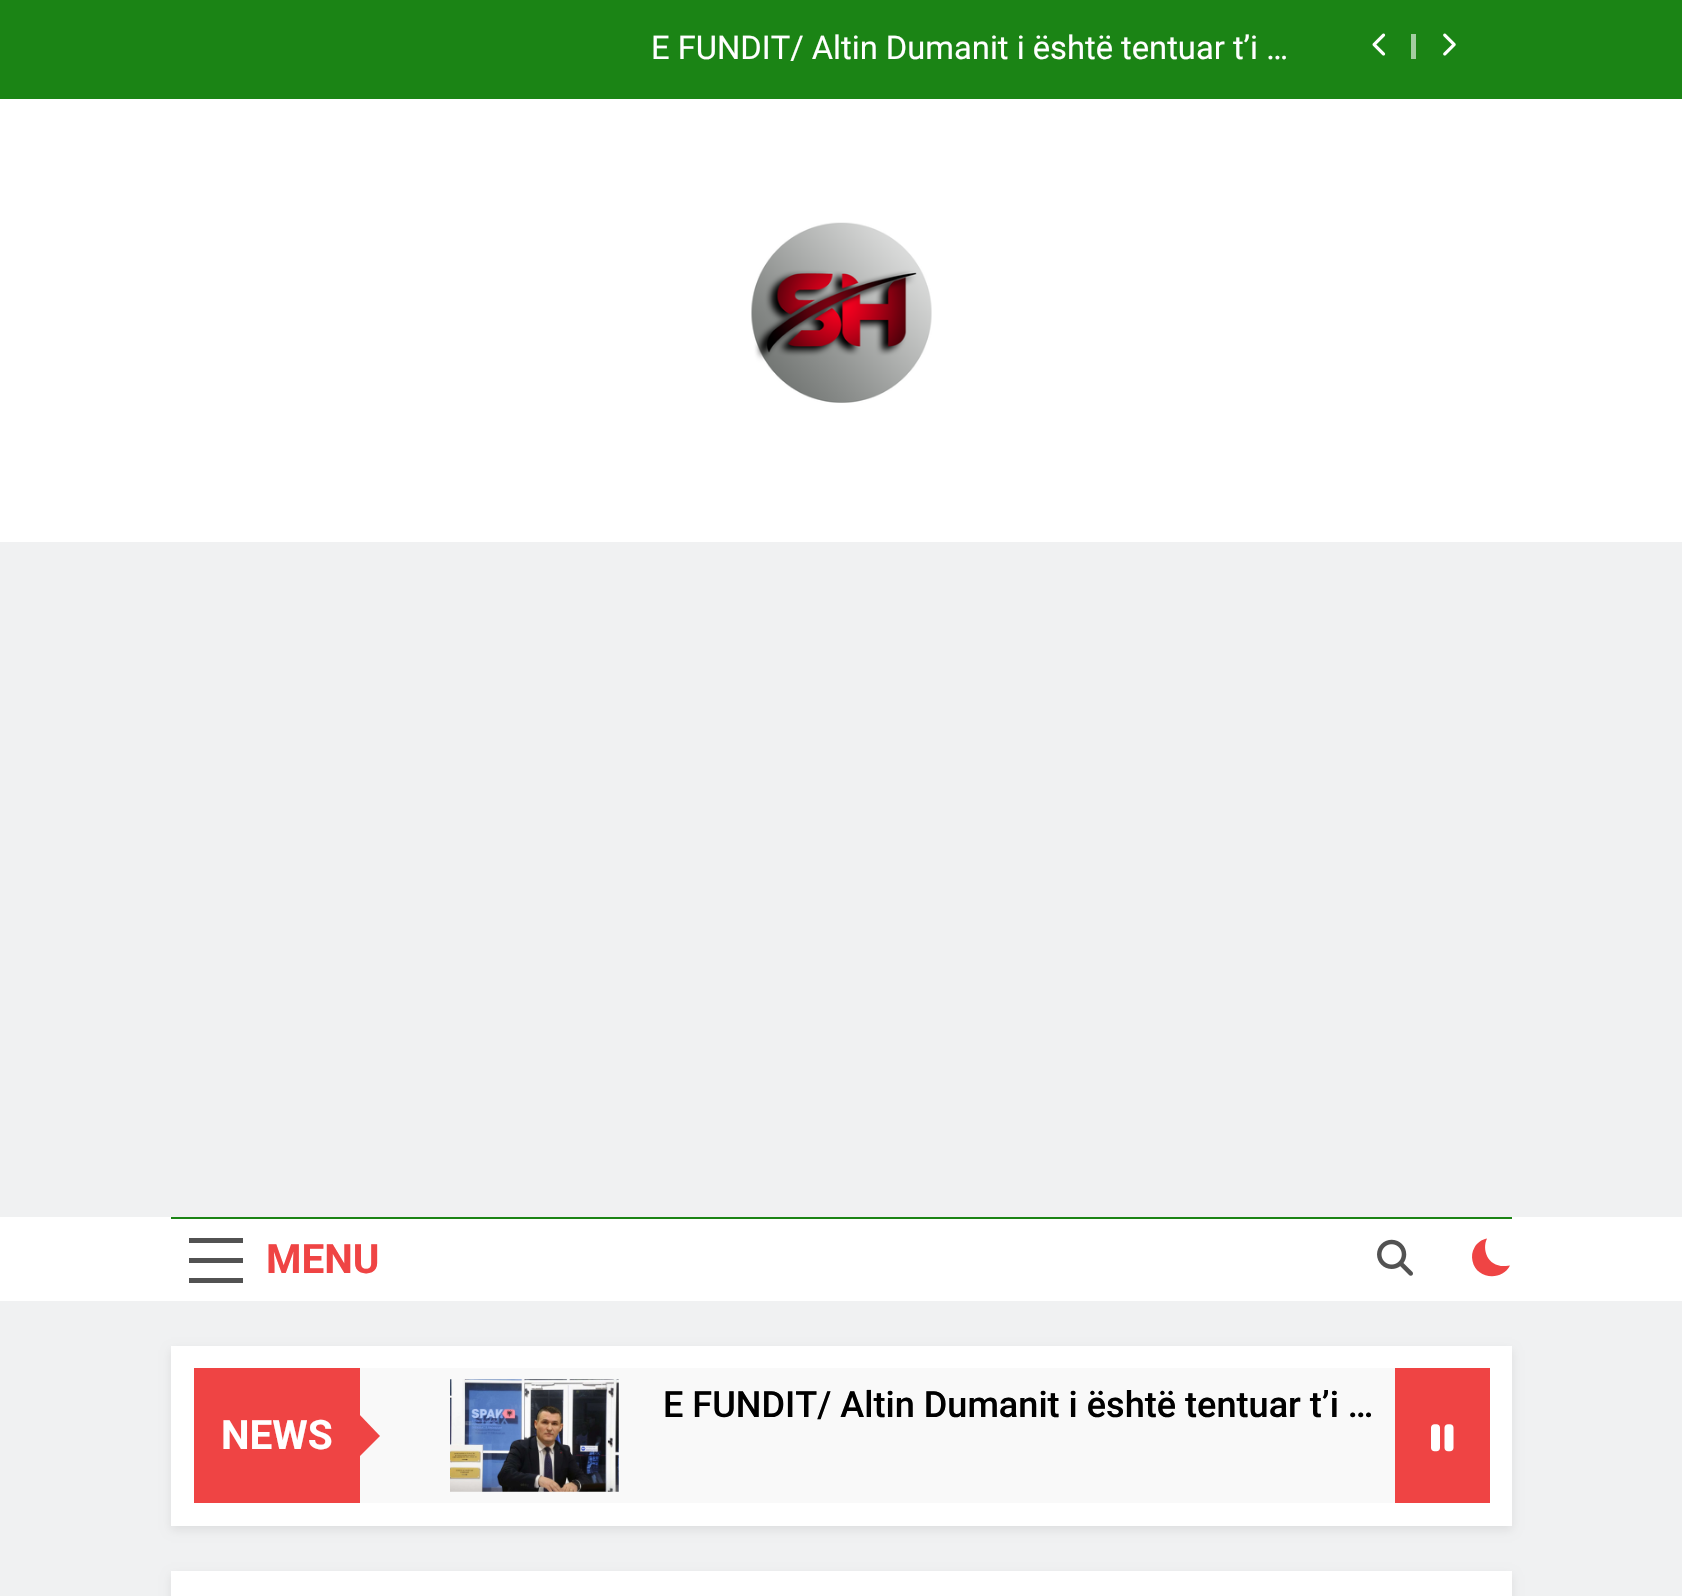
static SkFont makeFont(const char* family, int weight, float size, bool italic = false) {
  SkFontStyle style(weight, SkFontStyle::kNormal_Width,
    italic ? SkFontStyle::kItalic_Slant : SkFontStyle::kUpright_Slant);
  SkFont result(fontMgr->matchFamilyStyle(family, style), size);
  result.setSubpixel(true);
  return result;
}

static void text(SkCanvas* c, const char* s, float x, float y, const SkFont& font, SkColor color) {
  SkPaint ink(SkColor4f::FromColor(color));
  ink.setAntiAlias(true);
  c->drawString(s, x, y, font, ink);
}

static void box(SkCanvas* c, float l, float t, float r, float b, SkColor color) {
  SkPaint ink(SkColor4f::FromColor(color));
  ink.setAntiAlias(true);
  c->drawRect(SkRect::MakeLTRB(l, t, r, b), ink);
}

static void picture(SkCanvas* c, const char* path, float l, float t, float r, float b) {
  auto image = SkImages::DeferredFromEncodedData(SkData::MakeFromFileName(path));
  c->drawImageRect(image, SkRect::MakeLTRB(l, t, r, b), SkSamplingOptions());
}

void draw(SkCanvas* c) {
  SkPaint paint;
  paint.setAntiAlias(true);
  c->clear(0xfff0f1f2);
  box(c, 0, 0, 1682, 99, 0xff1b8415);
  SkFont face1 = makeFont("Roboto", 400, 32.7f);
  text(c, "E FUNDIT/ Altin Dumanit i është tentuar t’i …", 651, 59, face1, 0xffffffff);
  picture(c, "img_01.png", 1372, 33, 1386, 56);
  box(c, 1411, 34, 1416, 59, 0xffa4cea1);
  picture(c, "img_02.png", 1443, 33, 1456, 56);
  box(c, 0, 99, 1682, 542, 0xffffffff);
  picture(c, "img_03.png", 751, 222, 932, 403);
  box(c, 0, 1217, 1682, 1301, 0xffffffff);
  box(c, 171, 1217, 1512, 1219, 0xff1b8415);
  box(c, 189, 1238, 243, 1243, 0xff525252);
  box(c, 189, 1258, 243, 1263, 0xff525252);
  box(c, 189, 1278, 243, 1283, 0xff525252);
  SkFont face2 = makeFont("Roboto", 700, 40.5f);
  text(c, "MENU", 266, 1273, face2, 0xffef4444);
  picture(c, "img_04.png", 1377, 1239, 1413, 1276);
  paint.setColor(0xffef4444);
  c->drawPath(SkPathBuilder().moveTo(1510, 1265.5f).lineTo(1506, 1266).cubicTo(1488, 1267.5f, 1481.5f, 1250, 1487, 1238.5f).cubicTo(1481.5f, 1239.5f, 1477, 1243, 1474.5f, 1247.5f).cubicTo(1472, 1251.5f, 1471.5f, 1256.5f, 1472.5f, 1261).cubicTo(1476, 1279, 1502, 1281.5f, 1510, 1265.5f).close().detach(), paint);
  paint.setColor(0x14000000);
  paint.setMaskFilter(SkMaskFilter::MakeBlur(kNormal_SkBlurStyle, 4.5f));
  c->drawRect(SkRect::MakeLTRB(171, 1350, 1512, 1530), paint);
  paint.setMaskFilter(nullptr);
  box(c, 171, 1346, 1512, 1526, 0xffffffff);
  box(c, 360, 1368, 1395, 1503, 0xfff9f9f9);
  picture(c, "img_05.png", 450, 1379, 619, 1492);
  SkFont face3 = makeFont("Roboto", 500, 36.1f);
  text(c, "E FUNDIT/ Altin Dumanit i është tentuar t’i …", 663, 1417, face3, 0xff000000);
  box(c, 1395, 1368, 1490, 1503, 0xffef4444);
  picture(c, "img_06.png", 1431, 1424, 1454, 1452);
  box(c, 194, 1368, 360, 1503, 0xffef4444);
  text(c, "NEWS", 221, 1449, face2, 0xffffffff);
  paint.setColor(0xffef4444);
  c->drawPath(SkPathBuilder().moveTo(358, 1458).lineTo(358, 1413).lineTo(380, 1436).close().detach(), paint);
  paint.setColor(0x14000000);
  paint.setMaskFilter(SkMaskFilter::MakeBlur(kNormal_SkBlurStyle, 4.5f));
  c->drawRect(SkRect::MakeLTRB(171, 1575, 1512, 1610), paint);
  paint.setMaskFilter(nullptr);
  box(c, 171, 1571, 1512, 1596, 0xffffffff);
}
